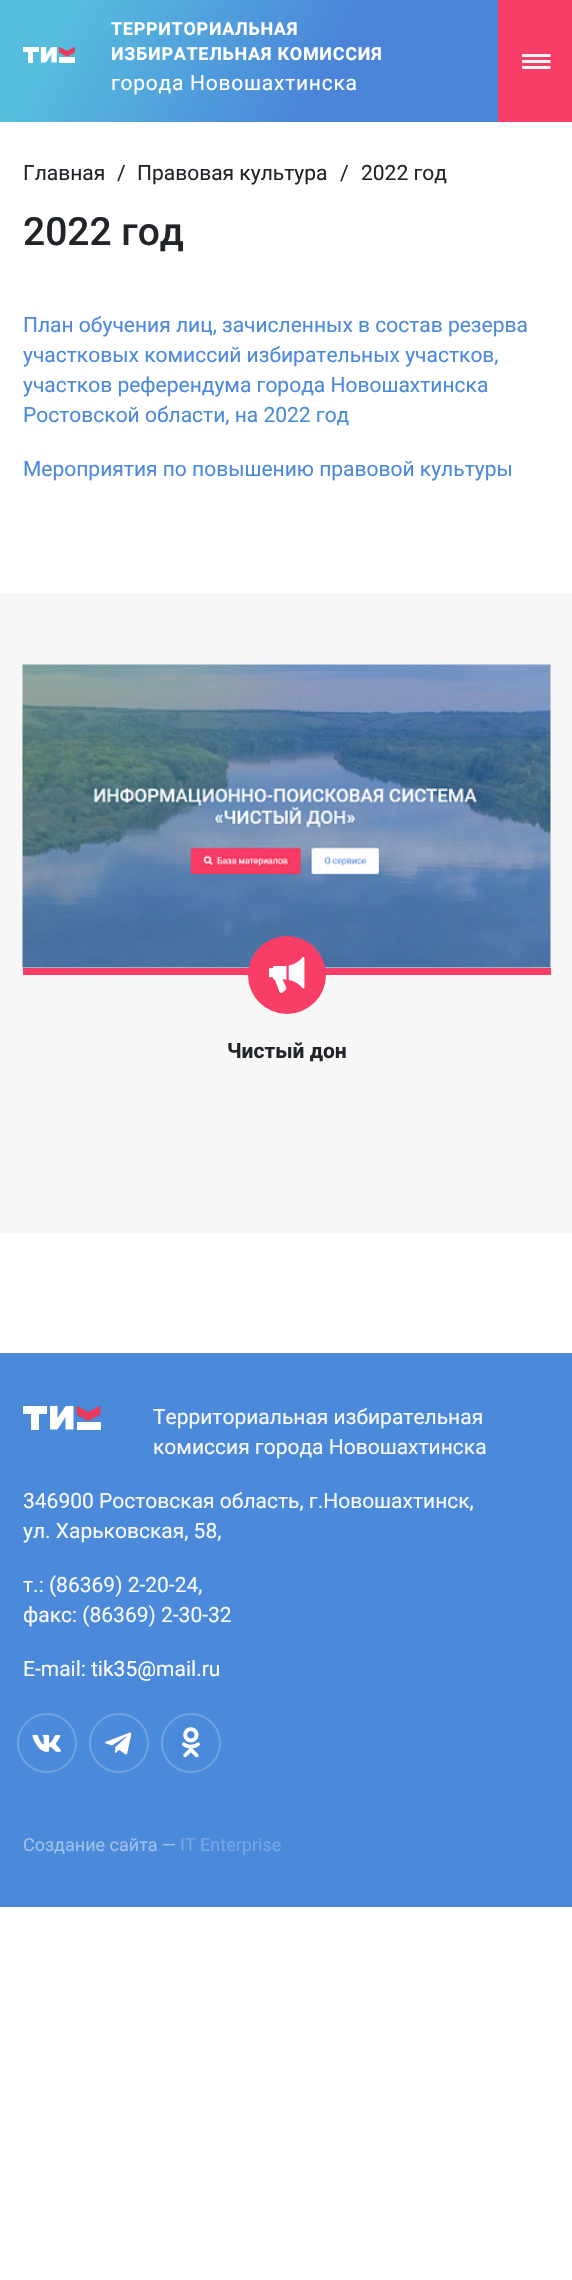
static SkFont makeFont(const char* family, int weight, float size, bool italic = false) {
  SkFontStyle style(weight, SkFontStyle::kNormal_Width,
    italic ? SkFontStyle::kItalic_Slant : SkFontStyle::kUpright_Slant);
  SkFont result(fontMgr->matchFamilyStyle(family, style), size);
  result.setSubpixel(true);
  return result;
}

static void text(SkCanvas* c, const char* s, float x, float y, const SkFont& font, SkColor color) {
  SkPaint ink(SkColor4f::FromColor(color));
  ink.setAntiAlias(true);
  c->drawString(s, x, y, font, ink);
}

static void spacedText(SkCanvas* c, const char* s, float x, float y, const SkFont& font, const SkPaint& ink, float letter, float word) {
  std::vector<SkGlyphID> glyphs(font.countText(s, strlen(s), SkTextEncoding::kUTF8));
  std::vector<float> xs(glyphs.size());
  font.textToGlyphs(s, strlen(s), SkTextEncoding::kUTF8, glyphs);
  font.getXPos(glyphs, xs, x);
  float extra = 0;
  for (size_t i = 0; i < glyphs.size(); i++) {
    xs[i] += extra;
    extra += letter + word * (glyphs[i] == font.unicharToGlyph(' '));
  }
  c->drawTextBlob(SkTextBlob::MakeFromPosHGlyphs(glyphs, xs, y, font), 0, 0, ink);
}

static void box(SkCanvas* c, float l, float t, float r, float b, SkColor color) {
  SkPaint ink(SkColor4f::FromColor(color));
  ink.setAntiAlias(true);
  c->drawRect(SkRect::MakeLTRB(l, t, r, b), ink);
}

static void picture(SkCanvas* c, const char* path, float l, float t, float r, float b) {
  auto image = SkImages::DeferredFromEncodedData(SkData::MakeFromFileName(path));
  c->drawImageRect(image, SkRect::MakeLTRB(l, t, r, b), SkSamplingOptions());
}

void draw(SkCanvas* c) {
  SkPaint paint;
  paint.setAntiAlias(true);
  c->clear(0xffffffff);
  {
    const SkColor colors[] = {0xff56bdde, 0xff4b85da};
    const float stops[] = {0.12f, 0.57f};
    const SkPoint ends[] = {{34, -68}, {539, 189}};
    paint.setShader(SkGradientShader::MakeLinear(ends, colors, stops, 2, SkTileMode::kClamp));
    paint.setAlpha(255);
  }
  c->drawRect(SkRect::MakeLTRB(0, 0, 498, 122), paint);
  picture(c, "img_01.png", 23, 47, 75, 63);
  SkFont face1 = makeFont("Roboto", 700, 18);
  paint.setShader(nullptr);
  paint.setColor(0xffffffff);
  spacedText(c, "ТЕРРИТОРИАЛЬНАЯ", 111, 35, face1, paint, 0.7f, 0);
  spacedText(c, "ИЗБИРАТЕЛЬНАЯ КОМИССИЯ", 111, 60, face1, paint, 0.7f, 0);
  SkFont face2 = makeFont("Roboto", 400, 21);
  spacedText(c, "города Новошахтинска", 111, 90, face2, paint, 0.75f, 0);
  box(c, 498, 0, 572, 122, 0xfff83d66);
  picture(c, "img_02.png", 522, 54, 551, 69);
  text(c, "Главная", 23, 180, face2, 0xff212529);
  text(c, "/", 117, 180, face2, 0xff212529);
  text(c, "Правовая культура", 137, 180, face2, 0xff212529);
  text(c, "/", 340, 180, face2, 0xff212529);
  text(c, "2022 год", 361, 180, face2, 0xff212529);
  SkFont face3 = makeFont("Roboto", 500, 39);
  text(c, "2022 год", 23, 245, face3, 0xff212529);
  text(c, "План обучения лиц, зачисленных в состав резерва", 23, 332, face2, 0xff4b89da);
  text(c, "участковых комиссий избирательных участков,", 23, 362, face2, 0xff4b89da);
  text(c, "участков референдума города Новошахтинска", 23, 392, face2, 0xff4b89da);
  text(c, "Ростовской области, на 2022 год", 23, 422, face2, 0xff4b89da);
  text(c, "Мероприятия по повышению правовой культуры", 23, 476, face2, 0xff4b89da);
  box(c, 0, 593, 572, 1233, 0xfff7f7f7);
  box(c, 23, 968, 551, 975, 0xfff83d66);
  picture(c, "img_03.png", 22, 664, 551, 968);
  paint.setColor(0xfff83d66);
  c->drawCircle(287, 975, 39, paint);
  picture(c, "img_04.png", 269, 957, 305, 993);
  SkFont face4 = makeFont("Roboto", 700, 21);
  text(c, "Чистый дон", 227, 1058, face4, 0xff212529);
  box(c, 0, 1353, 572, 1907, 0xff4b89da);
  box(c, 31, 1406, 39, 1430, 0xffffffff);
  box(c, 23, 1406, 47, 1414, 0xffffffff);
  c->save();
  c->clipRect(SkRect::MakeLTRB(23, 1406, 101, 1430));
  paint.setColor(0xffffffff);
  c->drawPath(SkPathBuilder(SkPathFillType::kEvenOdd).moveTo(50, 1405.5f).lineTo(57.5f, 1405.5f).lineTo(57.5f, 1418).lineTo(66, 1405.5f).lineTo(73.5f, 1405.5f).lineTo(73.5f, 1429.5f).lineTo(65.5f, 1429.5f).lineTo(65.5f, 1417).lineTo(57.5f, 1429.5f).lineTo(50, 1429.5f).close().detach(), paint);
  c->restore();
  paint.setColor(0xffe73a5c);
  c->drawPath(SkPathBuilder(SkPathFillType::kEvenOdd).moveTo(100.5f, 1414.5f).lineTo(100.5f, 1405.5f).lineTo(88.5f, 1412).lineTo(76.5f, 1405.5f).lineTo(76.5f, 1414.5f).lineTo(88.5f, 1421).close().detach(), paint);
  box(c, 77, 1422, 101, 1430, 0xffffffff);
  text(c, "Территориальная избирательная", 153, 1424, face2, 0xfff8f9fa);
  text(c, "комиссия города Новошахтинска", 153, 1454, face2, 0xfff8f9fa);
  text(c, "346900 Ростовская область, г.Новошахтинск,", 23, 1508, face2, 0xfff8f9fa);
  text(c, "ул. Харьковская, 58,", 23, 1538, face2, 0xfff8f9fa);
  text(c, "т.: (86369) 2-20-24,", 23, 1592, face2, 0xfff8f9fa);
  text(c, "факс: (86369) 2-30-32", 23, 1622, face2, 0xfff8f9fa);
  text(c, "E-mail:", 23, 1676, face2, 0xfff8f9fa);
  text(c, "tik35@mail.ru", 91, 1676, face2, 0xffffffff);
  paint.setStyle(SkPaint::kStroke_Style);
  paint.setStrokeWidth(2);
  paint.setColor(0xff6fa1e1);
  c->drawCircle(47, 1743, 29, paint);
  picture(c, "img_05.png", 32, 1734, 61, 1752);
  c->drawCircle(119, 1743, 29, paint);
  picture(c, "img_06.png", 105, 1732, 132, 1755);
  c->drawCircle(191, 1743, 29, paint);
  picture(c, "img_07.png", 181, 1727, 200, 1758);
  SkFont face5 = makeFont("Roboto", 400, 18);
  text(c, "Создание сайта —", 23, 1851, face5, 0xffa2c1ea);
  text(c, "IT Enterprise", 180, 1851, face5, 0xff78a7e3);
}
